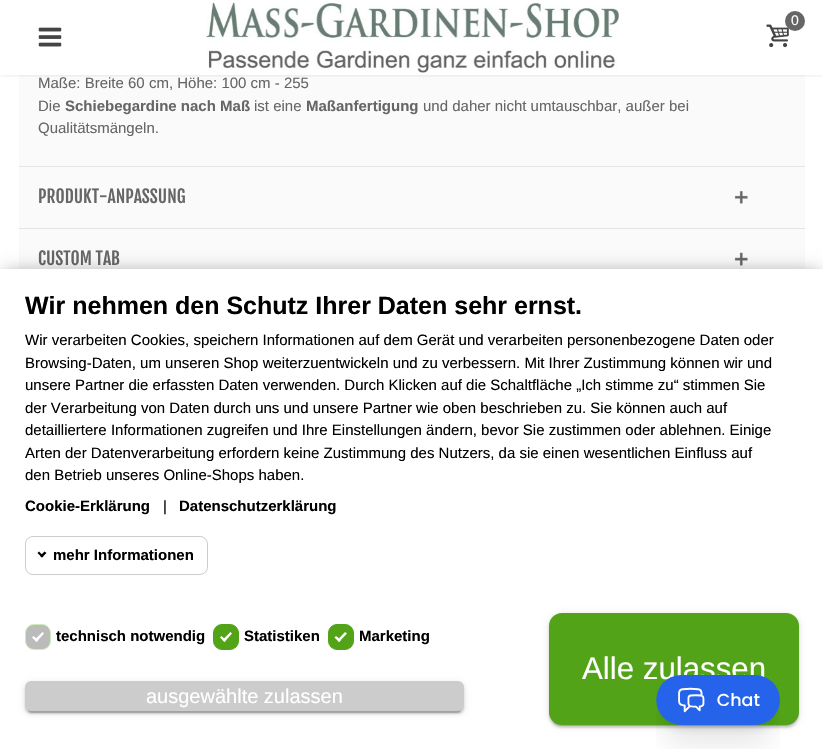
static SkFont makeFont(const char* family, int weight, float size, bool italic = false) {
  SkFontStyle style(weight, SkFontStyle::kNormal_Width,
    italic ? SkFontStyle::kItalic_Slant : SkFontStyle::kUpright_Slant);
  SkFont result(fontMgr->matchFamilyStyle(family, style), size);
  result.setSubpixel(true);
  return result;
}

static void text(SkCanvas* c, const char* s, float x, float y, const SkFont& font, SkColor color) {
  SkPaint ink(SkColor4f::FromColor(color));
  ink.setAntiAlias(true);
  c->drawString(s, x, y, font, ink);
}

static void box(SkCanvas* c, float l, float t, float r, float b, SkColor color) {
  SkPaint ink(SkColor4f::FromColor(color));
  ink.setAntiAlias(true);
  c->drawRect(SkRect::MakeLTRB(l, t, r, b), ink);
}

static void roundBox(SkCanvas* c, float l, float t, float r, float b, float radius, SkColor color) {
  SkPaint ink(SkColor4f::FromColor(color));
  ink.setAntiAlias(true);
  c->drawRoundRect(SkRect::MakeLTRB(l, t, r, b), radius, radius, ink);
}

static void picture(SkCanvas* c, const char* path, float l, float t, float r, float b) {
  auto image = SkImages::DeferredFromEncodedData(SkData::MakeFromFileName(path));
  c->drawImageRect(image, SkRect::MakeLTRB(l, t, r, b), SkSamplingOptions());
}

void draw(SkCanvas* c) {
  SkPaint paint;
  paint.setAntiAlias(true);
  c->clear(0xffffffff);
  box(c, 19, 75, 805, 269, 0xfffafafa);
  c->save();
  c->clipRect(SkRect::MakeLTRB(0, 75, 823, 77));
  paint.setColor(0x1a000000);
  paint.setMaskFilter(SkMaskFilter::MakeBlur(kNormal_SkBlurStyle, 2.5f));
  c->drawRect(SkRect::MakeLTRB(0, 0, 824, 75), paint);
  paint.setMaskFilter(nullptr);
  c->restore();
  picture(c, "img_01.png", 206, 2, 619, 73);
  picture(c, "img_02.png", 766, 24, 789, 48);
  paint.setColor(0xff666666);
  c->drawCircle(795, 21, 10, paint);
  SkFont face1 = makeFont("Liberation Sans", 400, 14);
  text(c, "0", 791, 25, face1, 0xffffffff);
  picture(c, "img_03.png", 38, 27, 62, 47);
  box(c, 19, 166, 805, 167, 0xffe5e5e5);
  SkFont face2 = makeFont("Liberation Sans", 400, 15);
  text(c, "Maße: Breite 60 cm, Höhe: 100 cm - 255", 38, 88, face2, 0xff666666);
  text(c, "Die", 38, 111, face2, 0xff666666);
  SkFont face3 = makeFont("Liberation Sans", 700, 15);
  text(c, "Schiebegardine nach Maß", 65, 111, face3, 0xff666666);
  text(c, "ist eine", 254, 111, face2, 0xff666666);
  text(c, "Maßanfertigung", 306, 111, face3, 0xff666666);
  text(c, "und daher nicht umtauschbar, außer bei", 423, 111, face2, 0xff666666);
  text(c, "Qualitätsmängeln.", 38, 133, face2, 0xff666666);
  box(c, 19, 228, 805, 229, 0xffe5e5e5);
  SkFont face4 = makeFont("Fjalla One", 400, 17.5f);
  text(c, "PRODUKT-ANPASSUNG", 38, 203, face4, 0xff666666);
  picture(c, "img_04.png", 734, 191, 748, 204);
  text(c, "CUSTOM TAB", 38, 265, face4, 0xff666666);
  picture(c, "img_05.png", 734, 252, 748, 266);
  paint.setColor(0x80000000);
  paint.setMaskFilter(SkMaskFilter::MakeBlur(kNormal_SkBlurStyle, 9.5f));
  c->drawRect(SkRect::MakeLTRB(4, 275, 820, 749), paint);
  paint.setMaskFilter(nullptr);
  box(c, 0, 269, 823, 749, 0xffffffff);
  SkFont face5 = makeFont("Liberation Sans", 700, 25);
  text(c, "Wir nehmen den Schutz Ihrer Daten sehr ernst.", 25, 314, face5, 0xff000000);
  text(c, "Wir verarbeiten Cookies, speichern Informationen auf dem Gerät und verarbeiten personenbezogene Daten oder", 25, 345, face2, 0xff000000);
  text(c, "Browsing-Daten, um unseren Shop weiterzuentwickeln und zu verbessern. Mit Ihrer Zustimmung können wir und", 25, 368, face2, 0xff000000);
  text(c, "unsere Partner die erfassten Daten verwenden. Durch Klicken auf die Schaltfläche „Ich stimme zu“ stimmen Sie", 25, 390, face2, 0xff000000);
  text(c, "der Verarbeitung von Daten durch uns und unsere Partner wie oben beschrieben zu. Sie können auch auf", 25, 413, face2, 0xff000000);
  text(c, "detailliertere Informationen zugreifen und Ihre Einstellungen ändern, bevor Sie zustimmen oder ablehnen. Einige", 25, 435, face2, 0xff000000);
  text(c, "Arten der Datenverarbeitung erfordern keine Zustimmung des Nutzers, da sie einen wesentlichen Einfluss auf", 25, 458, face2, 0xff000000);
  text(c, "den Betrieb unseres Online-Shops haben.", 25, 480, face2, 0xff000000);
  text(c, "Cookie-Erklärung", 25, 511, face3, 0xff000000);
  text(c, "|", 163, 511, face2, 0xff000000);
  text(c, "Datenschutzerklärung", 179, 511, face3, 0xff000000);
  paint.setStyle(SkPaint::kStroke_Style);
  paint.setStrokeWidth(1);
  paint.setColor(0xffcccccc);
  c->drawRoundRect(SkRect::MakeLTRB(25.5f, 536.5f, 207.5f, 574.5f), 7.5f, 7.5f, paint);
  paint.setStyle(SkPaint::kFill_Style);
  paint.setColor(0xff000000);
  c->drawPath(SkPathBuilder().moveTo(46.5f, 553).lineTo(42, 557.5f).lineTo(40, 556).lineTo(44.5f, 551.5f).close().detach(), paint);
  c->drawPath(SkPathBuilder().moveTo(43.5f, 556).lineTo(42, 557.5f).lineTo(37.5f, 553).lineTo(39, 551.5f).close().detach(), paint);
  text(c, "mehr Informationen", 53, 560, face3, 0xff000000);
  paint.setColor(0xffbbbbbb);
  c->drawRoundRect(SkRect::MakeLTRB(25.5f, 624.5f, 50.5f, 649.5f), 8.5f, 8.5f, paint);
  paint.setStyle(SkPaint::kStroke_Style);
  paint.setColor(0xffcbedb3);
  c->drawRoundRect(SkRect::MakeLTRB(25.5f, 624.5f, 50.5f, 649.5f), 8.5f, 8.5f, paint);
  paint.setStyle(SkPaint::kFill_Style);
  paint.setColor(0xffffffff);
  c->drawPath(SkPathBuilder().moveTo(42.5f, 632).lineTo(44, 633.5f).lineTo(36.5f, 642).lineTo(34.5f, 640).close().detach(), paint);
  c->drawPath(SkPathBuilder().moveTo(33.5f, 636).lineTo(38.5f, 640).lineTo(36.5f, 642).lineTo(32, 637.5f).close().detach(), paint);
  text(c, "technisch notwendig", 56, 641, face3, 0xff000000);
  paint.setColor(0xff52a318);
  c->drawRoundRect(SkRect::MakeLTRB(213.5f, 624.5f, 238.5f, 649.5f), 8.5f, 8.5f, paint);
  paint.setStyle(SkPaint::kStroke_Style);
  c->drawRoundRect(SkRect::MakeLTRB(213.5f, 624.5f, 238.5f, 649.5f), 8.5f, 8.5f, paint);
  paint.setStyle(SkPaint::kFill_Style);
  paint.setColor(0xffffffff);
  c->drawPath(SkPathBuilder().moveTo(230.5f, 632).lineTo(232, 633.5f).lineTo(224.5f, 642).lineTo(222.5f, 640).close().detach(), paint);
  c->drawPath(SkPathBuilder().moveTo(221.5f, 636).lineTo(226, 640).lineTo(224.5f, 642).lineTo(220, 637.5f).close().detach(), paint);
  text(c, "Statistiken", 244, 641, face3, 0xff000000);
  paint.setColor(0xff52a318);
  c->drawRoundRect(SkRect::MakeLTRB(328.5f, 624.5f, 353.5f, 649.5f), 8.5f, 8.5f, paint);
  paint.setStyle(SkPaint::kStroke_Style);
  c->drawRoundRect(SkRect::MakeLTRB(328.5f, 624.5f, 353.5f, 649.5f), 8.5f, 8.5f, paint);
  paint.setStyle(SkPaint::kFill_Style);
  paint.setColor(0xffffffff);
  c->drawPath(SkPathBuilder().moveTo(345, 632).lineTo(347, 633.5f).lineTo(339, 642).lineTo(337.5f, 640).close().detach(), paint);
  c->drawPath(SkPathBuilder().moveTo(336, 636).lineTo(341, 640).lineTo(339, 642).lineTo(334.5f, 637.5f).close().detach(), paint);
  text(c, "Marketing", 359, 641, face3, 0xff000000);
  paint.setColor(0x1f000000);
  paint.setMaskFilter(SkMaskFilter::MakeBlur(kNormal_SkBlurStyle, 3));
  c->drawRoundRect(SkRect::MakeLTRB(25, 683, 464, 713), 6, 6, paint);
  paint.setMaskFilter(nullptr);
  paint.setColor(0x24000000);
  paint.setMaskFilter(SkMaskFilter::MakeBlur(kNormal_SkBlurStyle, 1));
  c->drawRoundRect(SkRect::MakeLTRB(25, 684, 464, 714), 6, 6, paint);
  paint.setMaskFilter(nullptr);
  paint.setColor(0x33000000);
  paint.setMaskFilter(SkMaskFilter::MakeBlur(kNormal_SkBlurStyle, 0.5f));
  c->drawRoundRect(SkRect::MakeLTRB(28, 688, 461, 713), 4, 4, paint);
  paint.setMaskFilter(nullptr);
  roundBox(c, 25, 681, 464, 711, 6, 0xffcccccc);
  SkFont face6 = makeFont("Liberation Sans", 400, 20);
  text(c, "ausgewählte zulassen", 146, 703, face6, 0xffffffff);
  paint.setColor(0x1f000000);
  paint.setMaskFilter(SkMaskFilter::MakeBlur(kNormal_SkBlurStyle, 3));
  c->drawRoundRect(SkRect::MakeLTRB(549, 614, 799, 726), 13, 13, paint);
  paint.setMaskFilter(nullptr);
  paint.setColor(0x24000000);
  paint.setMaskFilter(SkMaskFilter::MakeBlur(kNormal_SkBlurStyle, 1));
  c->drawRoundRect(SkRect::MakeLTRB(549, 615, 799, 728), 13, 13, paint);
  paint.setMaskFilter(nullptr);
  paint.setColor(0x33000000);
  paint.setMaskFilter(SkMaskFilter::MakeBlur(kNormal_SkBlurStyle, 0.5f));
  c->drawRoundRect(SkRect::MakeLTRB(551, 619, 796, 726), 10, 10, paint);
  paint.setMaskFilter(nullptr);
  roundBox(c, 549, 613, 799, 725, 13, 0xff52a318);
  SkFont face7 = makeFont("Liberation Sans", 400, 31.25f);
  text(c, "Alle zulassen", 582, 679, face7, 0xffffffff);
  picture(c, "img_06.png", 656, 675, 780, 749);
}
